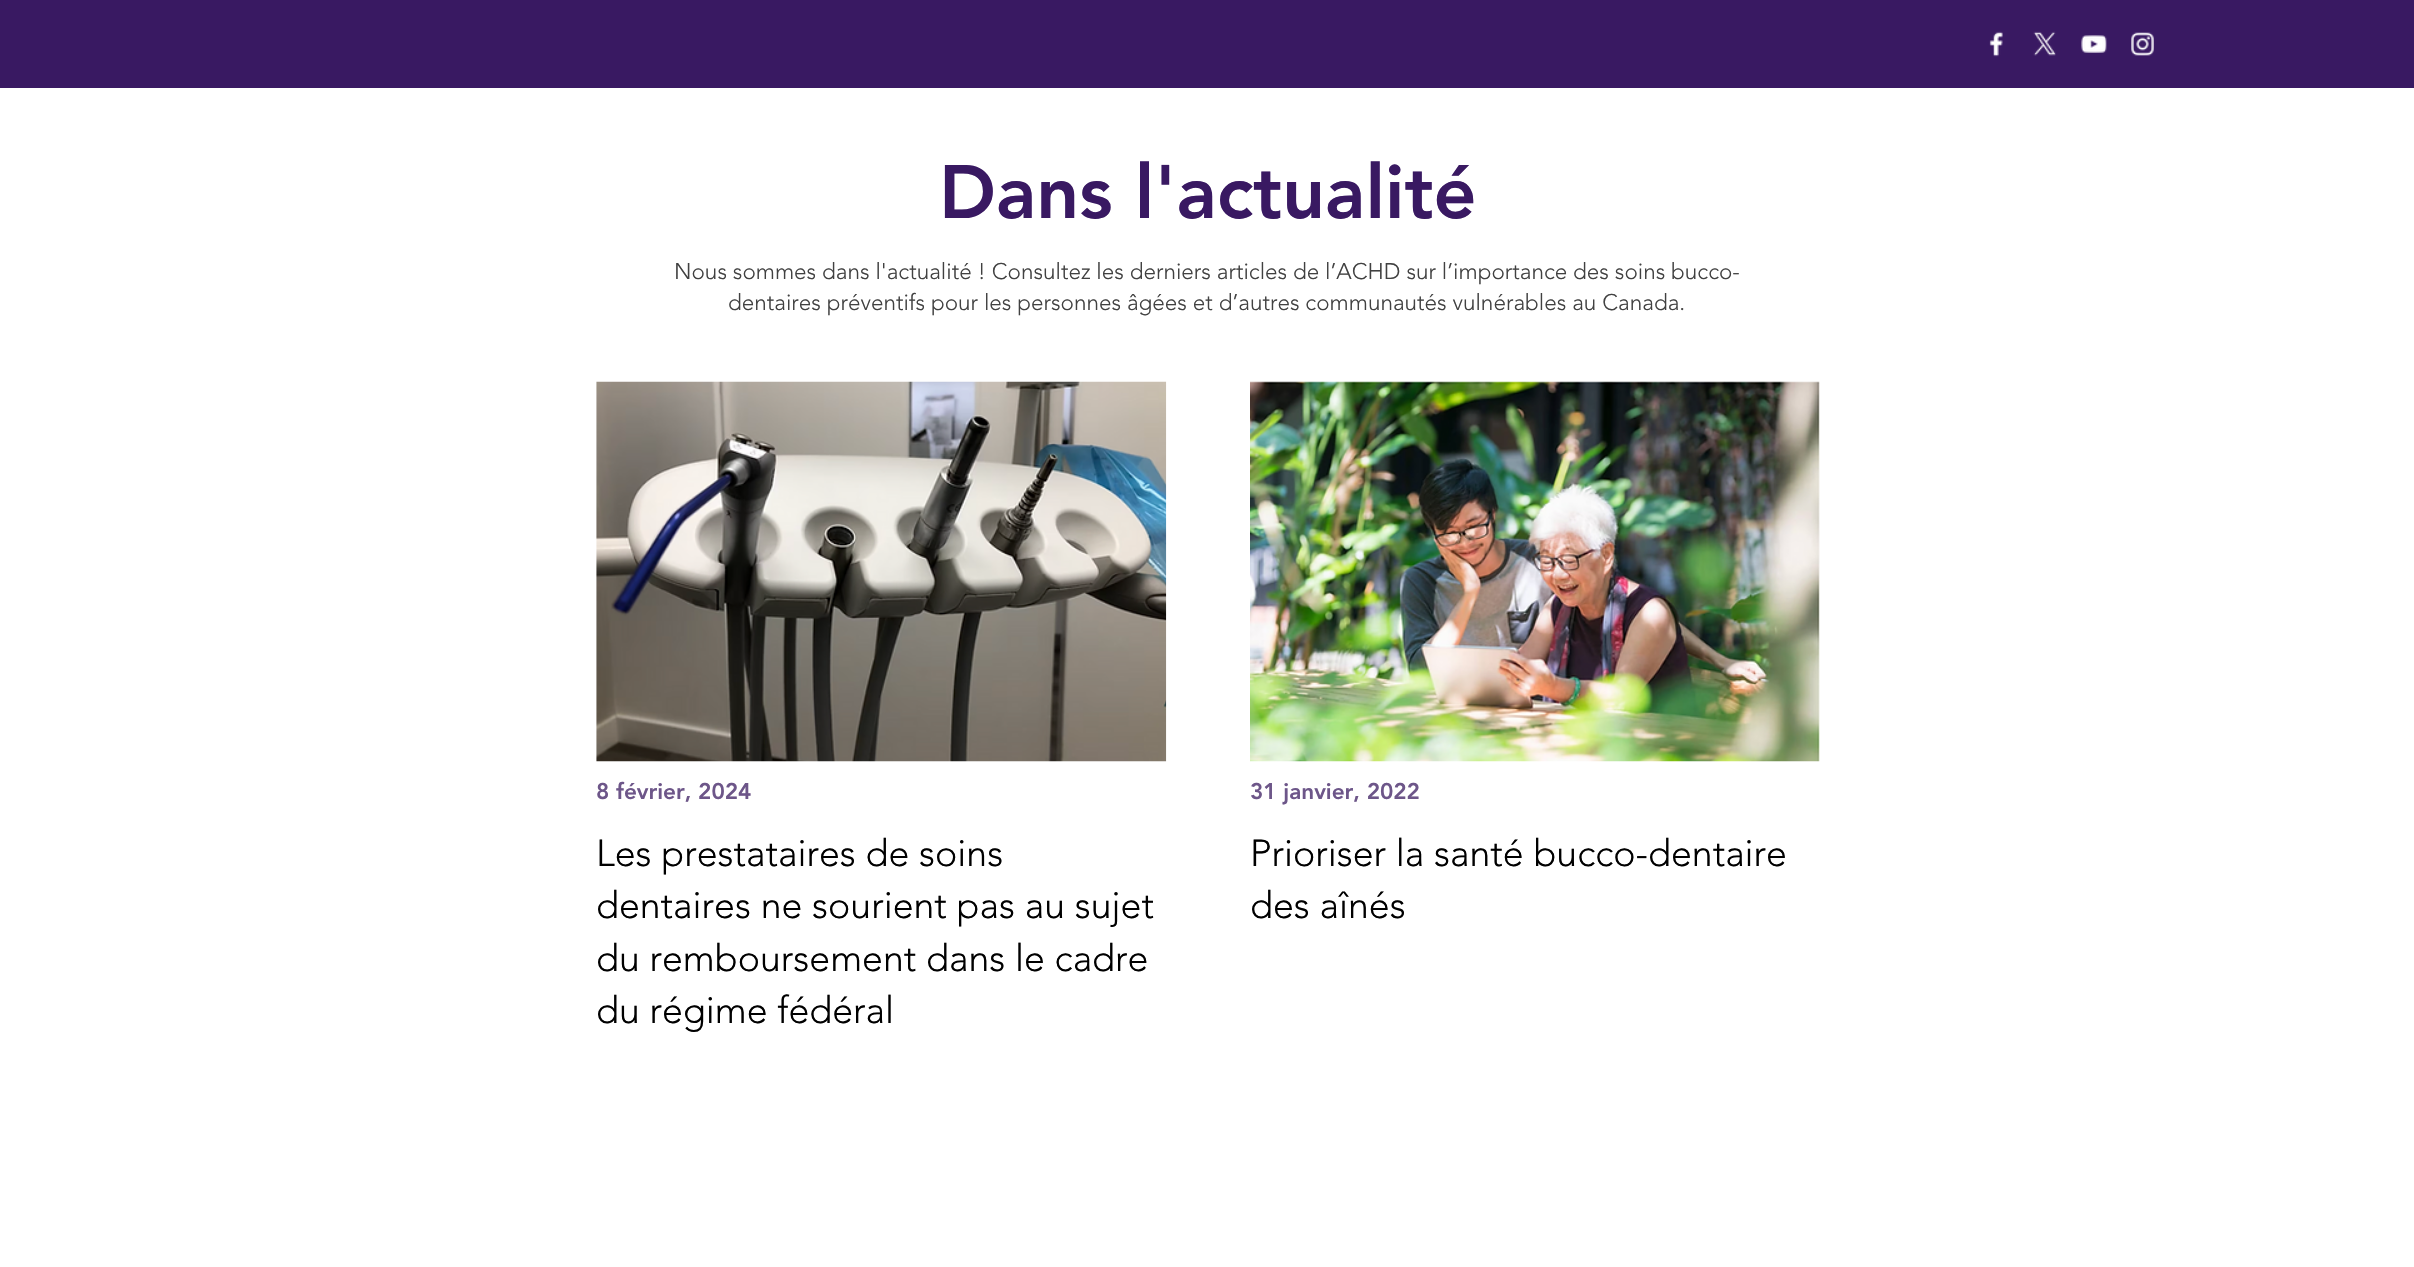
static SkFont makeFont(const char* family, int weight, float size, bool italic = false) {
  SkFontStyle style(weight, SkFontStyle::kNormal_Width,
    italic ? SkFontStyle::kItalic_Slant : SkFontStyle::kUpright_Slant);
  SkFont result(fontMgr->matchFamilyStyle(family, style), size);
  result.setSubpixel(true);
  return result;
}

static void text(SkCanvas* c, const char* s, float x, float y, const SkFont& font, SkColor color) {
  SkPaint ink(SkColor4f::FromColor(color));
  ink.setAntiAlias(true);
  c->drawString(s, x, y, font, ink);
}

static void box(SkCanvas* c, float l, float t, float r, float b, SkColor color) {
  SkPaint ink(SkColor4f::FromColor(color));
  ink.setAntiAlias(true);
  c->drawRect(SkRect::MakeLTRB(l, t, r, b), ink);
}

static void picture(SkCanvas* c, const char* path, float l, float t, float r, float b) {
  auto image = SkImages::DeferredFromEncodedData(SkData::MakeFromFileName(path));
  c->drawImageRect(image, SkRect::MakeLTRB(l, t, r, b), SkSamplingOptions());
}

void draw(SkCanvas* c) {
  SkPaint paint;
  paint.setAntiAlias(true);
  c->clear(0xffffffff);
  box(c, 0, 0, 2414, 88, 0xff391962);
  picture(c, "img_01.png", 1989, 31, 2003, 57);
  picture(c, "img_02.png", 2033, 31, 2056, 56);
  picture(c, "img_03.png", 2081, 35, 2107, 53);
  picture(c, "img_04.png", 2131, 32, 2154, 56);
  SkFont face1 = makeFont("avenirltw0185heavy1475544", 900, 75);
  text(c, "Dans l'actualité", 939, 218, face1, 0xff391962);
  SkFont face2 = makeFont("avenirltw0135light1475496", 300, 22.5f);
  text(c, "Nous sommes dans l'actualité ! Consultez les derniers articles de l’ACHD sur l’importance des soins bucco-", 674, 279, face2, 0xff414141);
  text(c, "dentaires préventifs pour les personnes âgées et d’autres communautés vulnérables au Canada.", 728, 310, face2, 0xff414141);
  picture(c, "img_05.png", 596, 381, 1167, 762);
  SkFont face3 = makeFont("avenirltw0185heavy1475544", 900, 22.5f);
  text(c, "8 février, 2024", 596, 799, face3, 0xff6d5689);
  SkFont face4 = makeFont("avenirltw0135light1475496", 300, 37.5f);
  text(c, "Les prestataires de soins", 596, 866, face4, 0xff000000);
  text(c, "dentaires ne sourient pas au sujet", 596, 918, face4, 0xff000000);
  text(c, "du remboursement dans le cadre", 596, 971, face4, 0xff000000);
  text(c, "du régime fédéral", 596, 1023, face4, 0xff000000);
  picture(c, "img_06.png", 1250, 381, 1820, 762);
  text(c, "31 janvier, 2022", 1250, 799, face3, 0xff6d5689);
  text(c, "Prioriser la santé bucco-dentaire", 1250, 866, face4, 0xff000000);
  text(c, "des aînés", 1250, 918, face4, 0xff000000);
}
